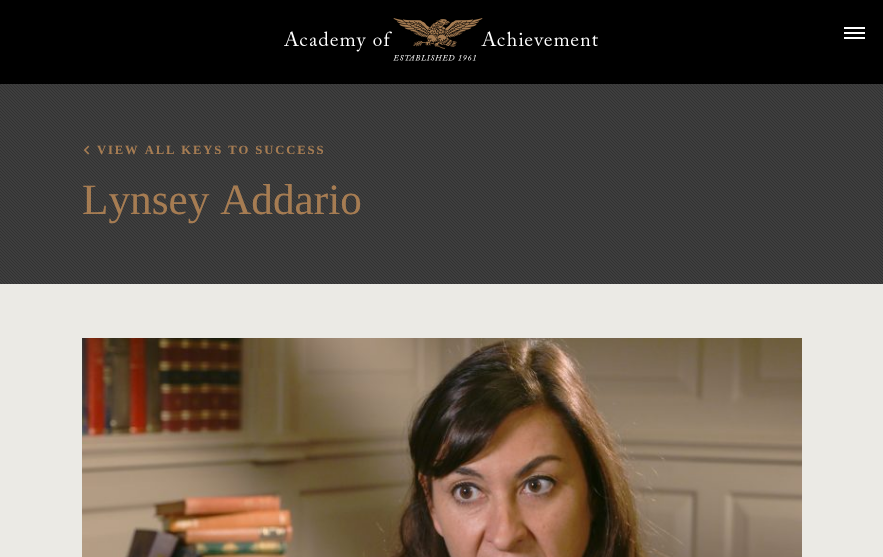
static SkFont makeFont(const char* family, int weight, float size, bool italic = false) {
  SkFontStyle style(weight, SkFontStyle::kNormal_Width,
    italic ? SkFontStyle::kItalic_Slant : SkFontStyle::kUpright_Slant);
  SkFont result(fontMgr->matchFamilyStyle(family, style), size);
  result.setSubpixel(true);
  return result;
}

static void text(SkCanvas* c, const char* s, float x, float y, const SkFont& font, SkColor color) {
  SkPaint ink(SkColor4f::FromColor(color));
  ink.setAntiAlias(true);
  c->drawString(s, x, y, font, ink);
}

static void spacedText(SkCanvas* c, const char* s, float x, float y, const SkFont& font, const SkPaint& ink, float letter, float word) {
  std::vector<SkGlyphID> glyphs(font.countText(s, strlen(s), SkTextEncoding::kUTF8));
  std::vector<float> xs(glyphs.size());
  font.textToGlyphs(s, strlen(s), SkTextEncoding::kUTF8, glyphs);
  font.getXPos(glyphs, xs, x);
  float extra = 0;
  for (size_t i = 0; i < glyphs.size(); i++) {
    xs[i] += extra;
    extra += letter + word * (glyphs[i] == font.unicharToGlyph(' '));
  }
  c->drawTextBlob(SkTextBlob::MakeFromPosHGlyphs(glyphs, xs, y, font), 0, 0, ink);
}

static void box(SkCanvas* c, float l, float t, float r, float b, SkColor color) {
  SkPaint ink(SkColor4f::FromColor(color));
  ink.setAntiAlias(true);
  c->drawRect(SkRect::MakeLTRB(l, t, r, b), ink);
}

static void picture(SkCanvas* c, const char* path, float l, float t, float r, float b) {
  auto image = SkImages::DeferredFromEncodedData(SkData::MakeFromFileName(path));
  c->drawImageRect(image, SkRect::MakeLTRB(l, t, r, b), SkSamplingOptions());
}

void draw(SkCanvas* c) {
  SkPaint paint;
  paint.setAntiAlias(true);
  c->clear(0xffebeae5);
  box(c, 0, 0, 883, 84, 0xff000000);
  picture(c, "img_01.png", 284, 18, 598, 61);
  box(c, 844, 27, 865, 29, 0xffffffff);
  box(c, 844, 32, 865, 34, 0xffffffff);
  box(c, 844, 37, 865, 39, 0xffffffff);
  box(c, 0, 84, 883, 284, 0xff3e3e3e);
  picture(c, "img_02.png", 0, 84, 883, 284);
  picture(c, "img_03.png", 83, 145, 90, 155);
  SkFont face1 = makeFont("Liberation Serif", 700, 12.6f);
  paint.setColor(0xffa67c52);
  spacedText(c, "VIEW ALL KEYS TO SUCCESS", 97, 154, face1, paint, 1.9f, 0);
  SkFont face2 = makeFont("Liberation Serif", 400, 43.25f);
  text(c, "Lynsey Addario", 82, 214, face2, 0xffa67c52);
  picture(c, "img_04.png", 82, 338, 802, 557);
}
